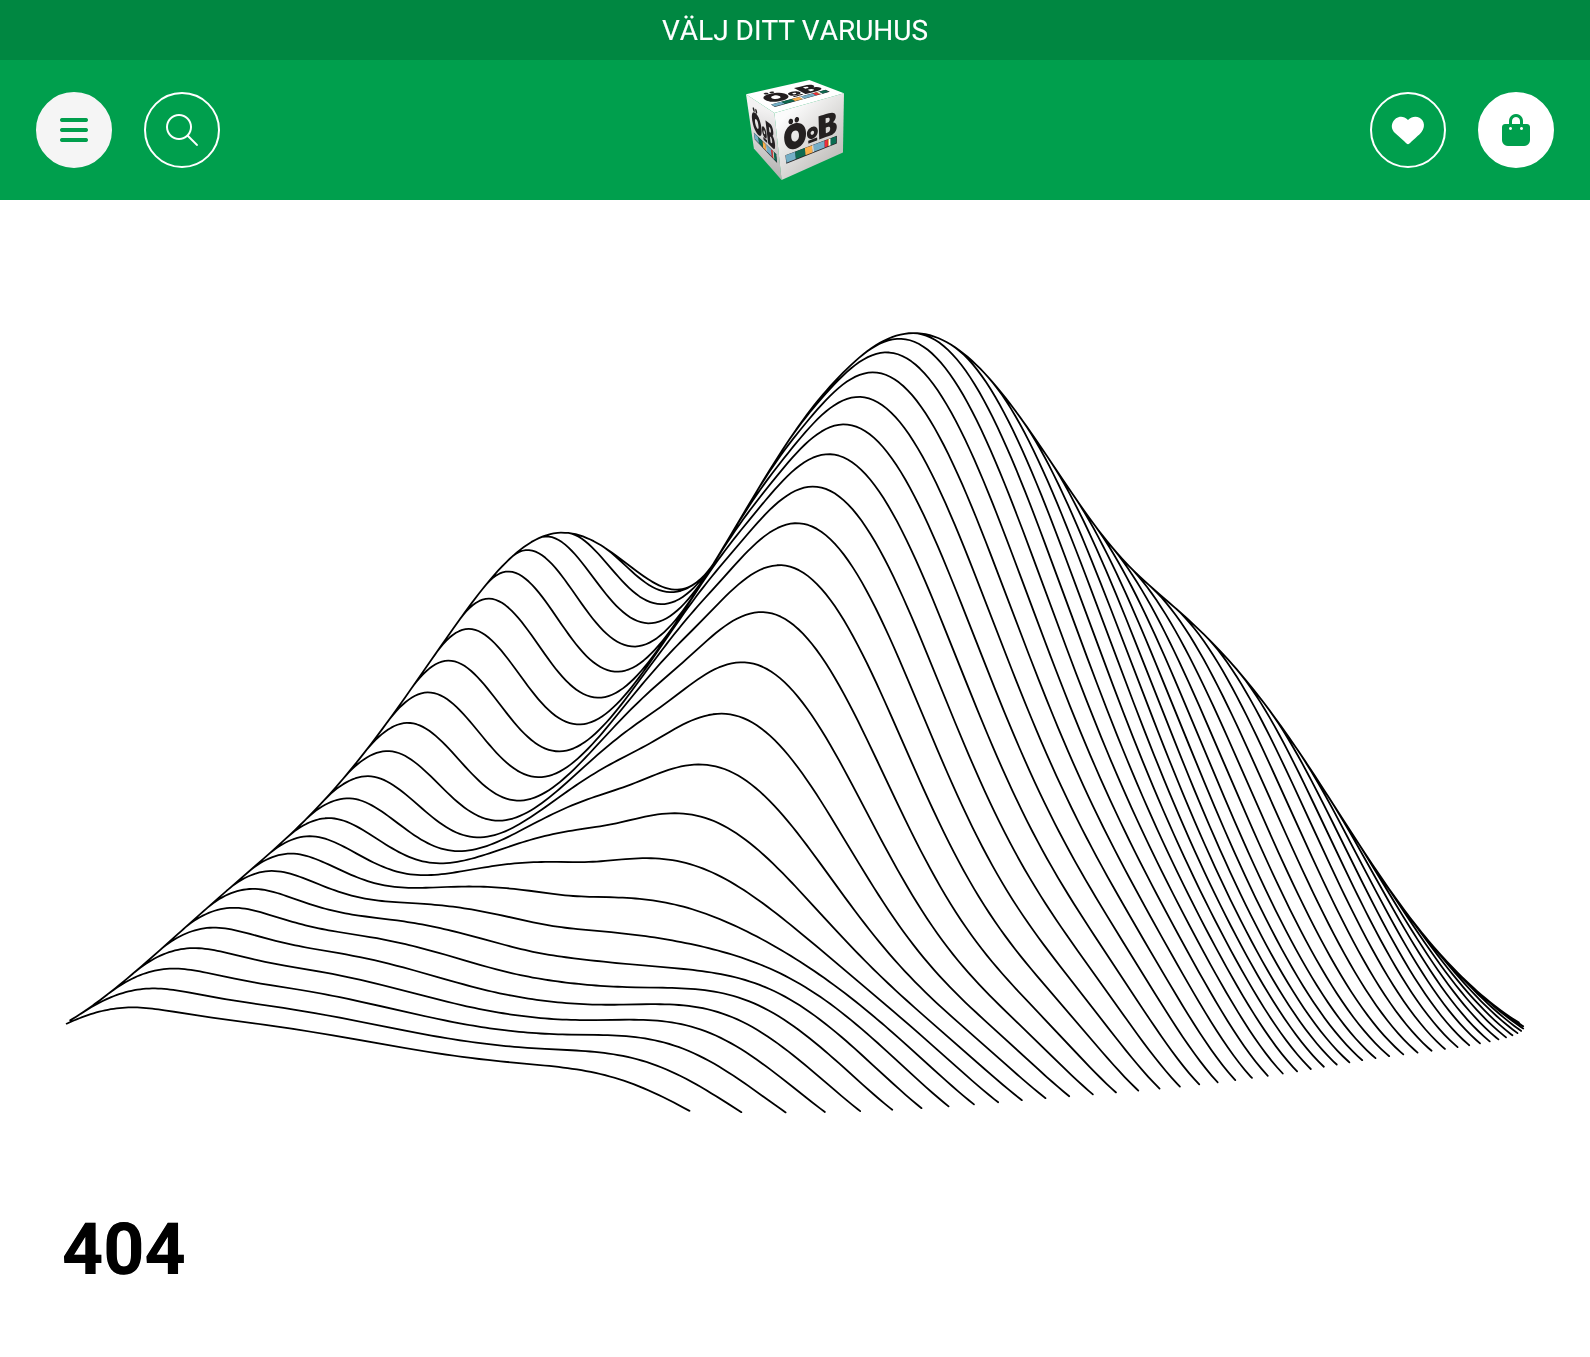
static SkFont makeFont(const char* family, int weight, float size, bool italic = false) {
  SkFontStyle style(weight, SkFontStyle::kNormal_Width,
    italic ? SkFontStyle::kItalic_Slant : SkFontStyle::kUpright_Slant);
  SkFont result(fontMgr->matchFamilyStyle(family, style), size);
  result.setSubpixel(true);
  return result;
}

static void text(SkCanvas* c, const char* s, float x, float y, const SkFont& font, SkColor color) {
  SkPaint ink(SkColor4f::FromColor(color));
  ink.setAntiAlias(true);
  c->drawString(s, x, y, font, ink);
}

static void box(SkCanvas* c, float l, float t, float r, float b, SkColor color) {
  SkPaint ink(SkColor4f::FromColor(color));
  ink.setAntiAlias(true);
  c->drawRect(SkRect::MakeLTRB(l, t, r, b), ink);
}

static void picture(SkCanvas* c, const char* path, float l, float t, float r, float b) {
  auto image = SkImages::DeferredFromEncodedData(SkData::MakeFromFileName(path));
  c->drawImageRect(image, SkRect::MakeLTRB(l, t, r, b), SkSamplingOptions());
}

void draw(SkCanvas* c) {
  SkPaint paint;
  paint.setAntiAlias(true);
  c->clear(0xffffffff);
  box(c, 0, 0, 1590, 60, 0xff008741);
  SkFont face1 = makeFont("Roboto", 400, 28);
  text(c, "VÄLJ DITT VARUHUS", 662, 40, face1, 0xffffffff);
  box(c, 0, 60, 1590, 200, 0xff009f4d);
  paint.setColor(0xfff5f5f5);
  c->drawCircle(74, 130, 37, paint);
  paint.setStyle(SkPaint::kStroke_Style);
  paint.setStrokeWidth(2);
  c->drawCircle(74, 130, 37, paint);
  picture(c, "img_01.png", 60, 118, 88, 142);
  paint.setColor(0xffffffff);
  c->drawCircle(182, 130, 37, paint);
  picture(c, "img_02.png", 166, 114, 198, 146);
  picture(c, "img_03.png", 746, 80, 844, 180);
  c->drawCircle(1408, 130, 37, paint);
  paint.setStyle(SkPaint::kFill_Style);
  c->drawPath(SkPathBuilder().moveTo(1395, 133).lineTo(1404.5f, 141.5f).cubicTo(1408, 145, 1408, 145, 1411.5f, 141.5f).lineTo(1415.5f, 138).cubicTo(1418, 135.5f, 1421.5f, 133, 1423, 129.5f).cubicTo(1427.5f, 120, 1416, 112, 1408, 120).cubicTo(1398.5f, 110.5f, 1386, 124.5f, 1395, 133).close().detach(), paint);
  c->drawCircle(1516, 130, 37, paint);
  paint.setStyle(SkPaint::kStroke_Style);
  c->drawCircle(1516, 130, 37, paint);
  picture(c, "img_04.png", 1502, 114, 1530, 146);
  picture(c, "img_05.png", 65, 332, 1525, 1114);
  SkFont face2 = makeFont("Roboto", 700, 72);
  text(c, "404", 62, 1274, face2, 0xff000000);
}
